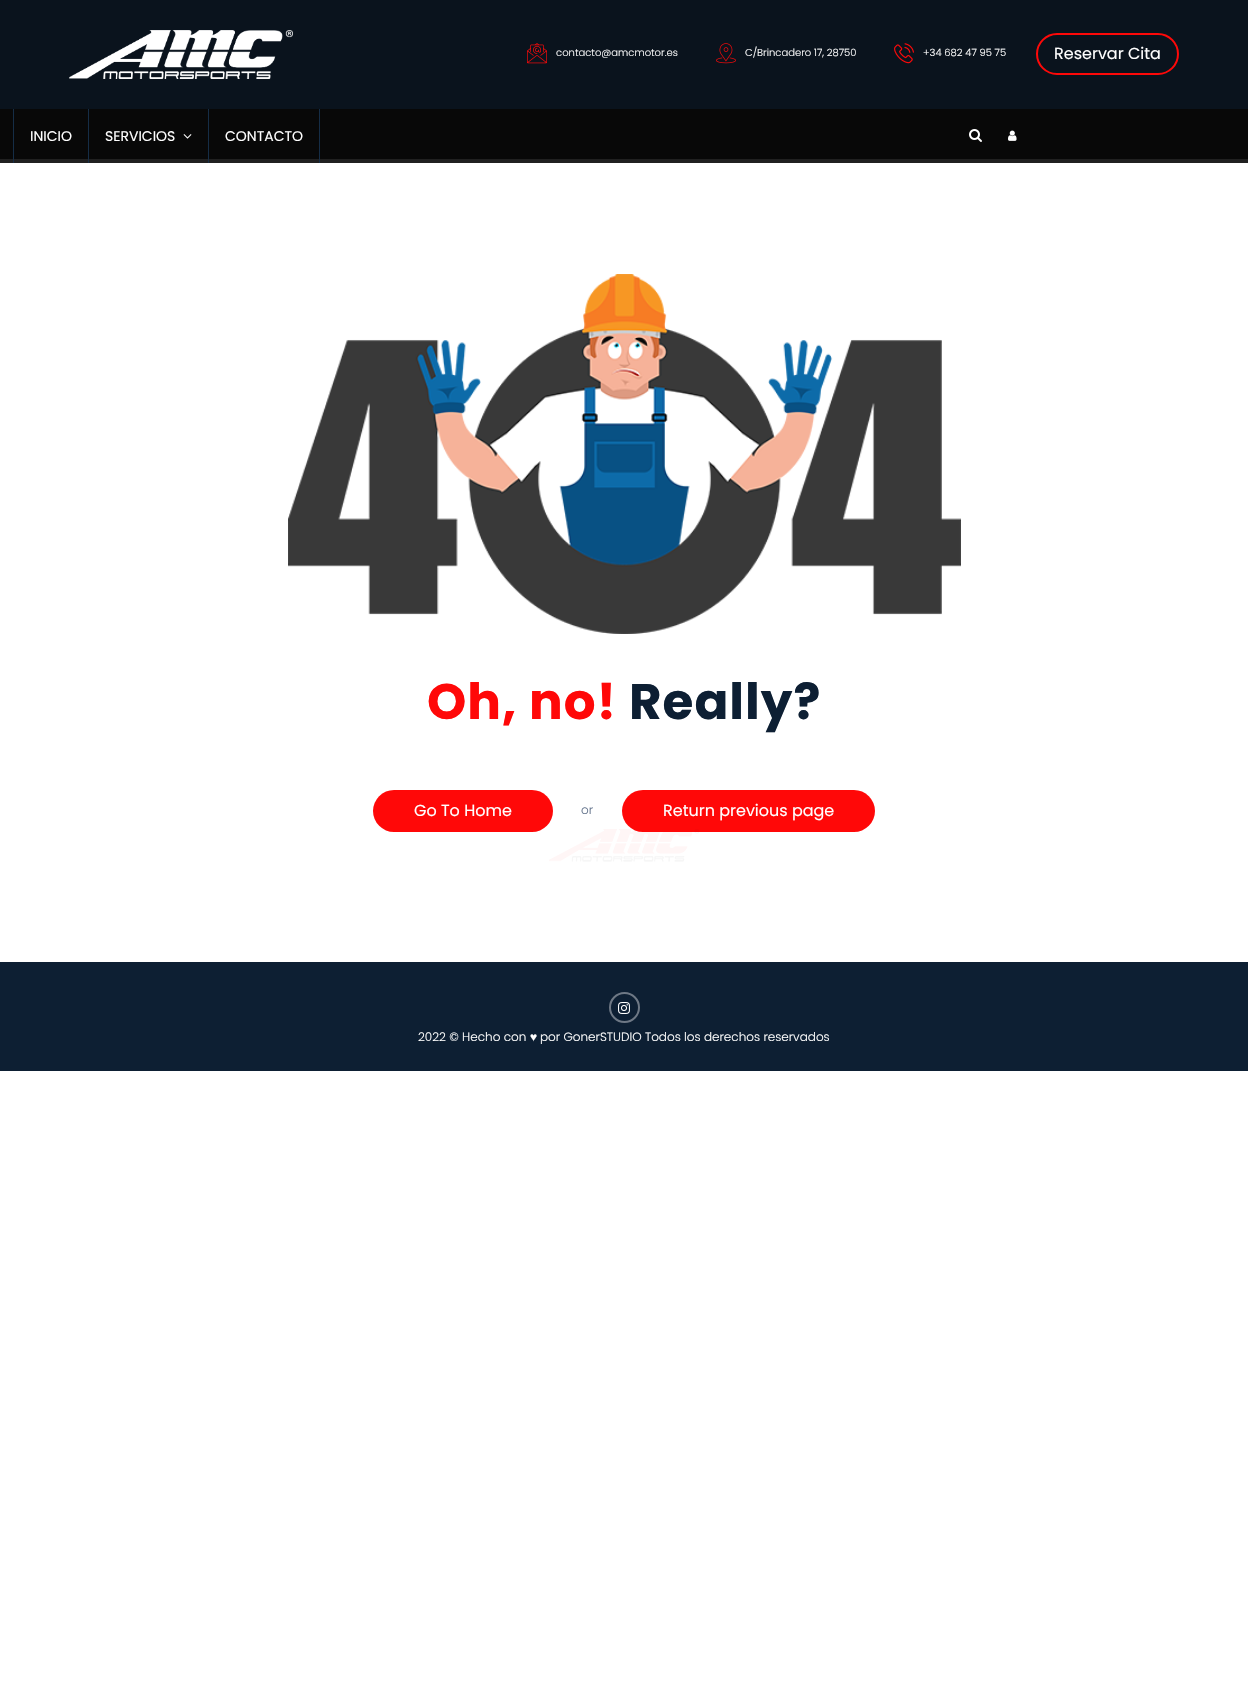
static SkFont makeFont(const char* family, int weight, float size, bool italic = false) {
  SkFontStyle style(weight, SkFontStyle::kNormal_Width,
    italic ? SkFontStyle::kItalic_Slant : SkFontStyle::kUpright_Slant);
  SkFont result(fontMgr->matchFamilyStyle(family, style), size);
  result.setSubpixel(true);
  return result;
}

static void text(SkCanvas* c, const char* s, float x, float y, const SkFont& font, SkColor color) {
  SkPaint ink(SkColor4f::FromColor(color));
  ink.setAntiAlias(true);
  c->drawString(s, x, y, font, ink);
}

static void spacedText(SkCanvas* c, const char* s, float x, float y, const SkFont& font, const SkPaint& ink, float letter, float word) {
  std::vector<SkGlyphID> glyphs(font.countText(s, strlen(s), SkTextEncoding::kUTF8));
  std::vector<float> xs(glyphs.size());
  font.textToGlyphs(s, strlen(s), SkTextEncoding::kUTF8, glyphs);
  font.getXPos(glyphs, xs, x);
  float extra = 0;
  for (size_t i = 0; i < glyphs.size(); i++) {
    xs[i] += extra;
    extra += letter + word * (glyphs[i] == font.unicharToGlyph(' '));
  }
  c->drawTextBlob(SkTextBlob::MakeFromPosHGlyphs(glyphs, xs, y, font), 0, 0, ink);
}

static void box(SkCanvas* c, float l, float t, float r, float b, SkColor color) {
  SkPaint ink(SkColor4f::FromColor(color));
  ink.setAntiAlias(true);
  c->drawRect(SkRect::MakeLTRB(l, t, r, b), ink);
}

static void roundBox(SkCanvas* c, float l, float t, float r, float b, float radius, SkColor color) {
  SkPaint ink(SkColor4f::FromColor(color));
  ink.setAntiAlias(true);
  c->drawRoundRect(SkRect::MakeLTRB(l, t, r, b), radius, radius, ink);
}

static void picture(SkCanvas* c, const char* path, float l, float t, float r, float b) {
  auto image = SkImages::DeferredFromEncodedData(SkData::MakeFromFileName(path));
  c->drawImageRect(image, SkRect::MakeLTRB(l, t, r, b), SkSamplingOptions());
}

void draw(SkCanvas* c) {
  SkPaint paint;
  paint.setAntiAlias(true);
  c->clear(0xffffffff);
  box(c, 0, 159, 1248, 163, 0xff202020);
  box(c, 0, 0, 1248, 109, 0xff0a131d);
  picture(c, "img_01.png", 69, 30, 293, 79);
  picture(c, "img_02.png", 527, 43, 547, 64);
  SkFont face1 = makeFont("Poppins", 300, 10);
  text(c, "contacto@amcmotor.es", 556, 56, face1, 0xffffffff);
  picture(c, "img_03.png", 716, 43, 736, 64);
  text(c, "C/Brincadero 17, 28750", 745, 56, face1, 0xffffffff);
  picture(c, "img_04.png", 894, 43, 914, 64);
  text(c, "+34 682 47 95 75", 923, 56, face1, 0xffffffff);
  paint.setStyle(SkPaint::kStroke_Style);
  paint.setStrokeWidth(2);
  paint.setColor(0xffff0808);
  c->drawRoundRect(SkRect::MakeLTRB(1037, 34, 1178, 74), 20, 20, paint);
  SkFont face2 = makeFont("Poppins", 400, 16);
  text(c, "Reservar Cita", 1054, 59, face2, 0xffffffff);
  box(c, 0, 109, 1248, 159, 0xff080808);
  box(c, 13, 109, 14, 163, 0xff152d46);
  SkFont face3 = makeFont("Poppins", 400, 14);
  text(c, "INICIO", 30, 141, face3, 0xffffffff);
  box(c, 88, 109, 89, 163, 0xff152d46);
  text(c, "SERVICIOS", 105, 141, face3, 0xffffffff);
  picture(c, "img_05.png", 183, 134, 192, 139);
  box(c, 208, 109, 209, 163, 0xff152d46);
  text(c, "CONTACTO", 225, 141, face3, 0xffffffff);
  box(c, 319, 109, 320, 163, 0xff152d46);
  picture(c, "img_06.png", 969, 129, 982, 142);
  picture(c, "img_07.png", 1008, 130, 1017, 141);
  picture(c, "img_08.png", 288, 274, 961, 634);
  SkFont face4 = makeFont("Poppins", 700, 50);
  paint.setStyle(SkPaint::kFill_Style);
  spacedText(c, "Oh, no!", 427, 719, face4, paint, 1, 0);
  paint.setColor(0xff0d1f33);
  spacedText(c, "Really?", 629, 719, face4, paint, 1, 0);
  roundBox(c, 373, 790, 553, 832, 21, 0xffff0808);
  text(c, "Go To Home", 414, 816, face2, 0xffffffff);
  SkFont face5 = makeFont("Poppins", 300, 12);
  text(c, "or", 581, 814, face5, 0xff66768e);
  roundBox(c, 622, 790, 875, 832, 21, 0xffff0808);
  text(c, "Return previous page", 663, 816, face2, 0xffffffff);
  box(c, 0, 962, 1248, 1071, 0xff0d1f33);
  paint.setStyle(SkPaint::kStroke_Style);
  paint.setColor(0xff6e7885);
  c->drawCircle(624.5f, 1007.5f, 14.5f, paint);
  picture(c, "img_09.png", 618, 1002, 630, 1014);
  text(c, "2022 © Hecho con", 418, 1041, face5, 0xffffffff);
  SkFont face6 = makeFont("Liberation Sans", 400, 12);
  text(c, "♥", 530, 1041, face6, 0xffffffff);
  text(c, "por GonerSTUDIO Todos los derechos reservados", 540, 1041, face5, 0xffffffff);
  picture(c, "img_10.png", 549, 829, 699, 862);
}
